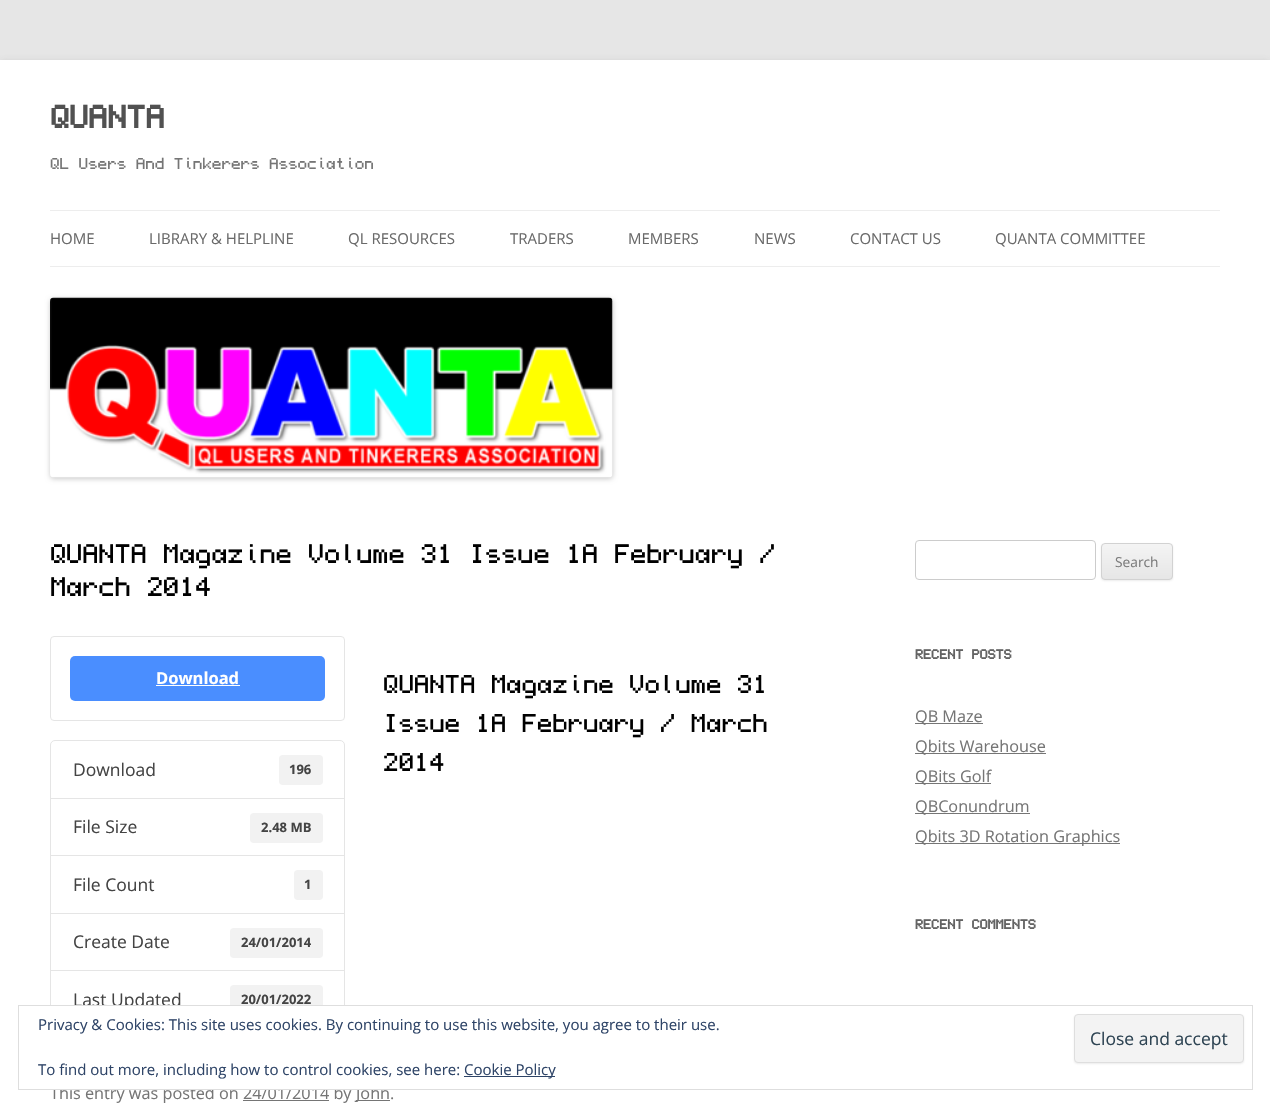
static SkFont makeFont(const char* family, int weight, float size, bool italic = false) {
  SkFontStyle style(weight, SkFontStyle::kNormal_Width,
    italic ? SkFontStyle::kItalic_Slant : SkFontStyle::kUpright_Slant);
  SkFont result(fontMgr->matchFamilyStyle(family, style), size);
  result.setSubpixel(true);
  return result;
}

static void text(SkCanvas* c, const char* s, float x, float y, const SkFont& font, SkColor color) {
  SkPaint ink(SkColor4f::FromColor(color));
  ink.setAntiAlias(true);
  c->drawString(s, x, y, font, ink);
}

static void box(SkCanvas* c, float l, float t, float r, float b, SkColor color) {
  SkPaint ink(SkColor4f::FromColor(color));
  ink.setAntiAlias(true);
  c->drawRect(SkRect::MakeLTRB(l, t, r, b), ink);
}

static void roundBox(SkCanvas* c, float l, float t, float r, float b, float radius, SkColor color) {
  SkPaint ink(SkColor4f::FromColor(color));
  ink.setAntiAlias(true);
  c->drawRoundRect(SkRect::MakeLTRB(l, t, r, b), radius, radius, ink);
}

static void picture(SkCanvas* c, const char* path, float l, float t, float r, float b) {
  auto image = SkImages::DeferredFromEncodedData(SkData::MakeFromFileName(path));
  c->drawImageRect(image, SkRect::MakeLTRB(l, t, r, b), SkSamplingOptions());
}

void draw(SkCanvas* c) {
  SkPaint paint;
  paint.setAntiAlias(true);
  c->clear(0xffe6e6e6);
  paint.setColor(0x4d646464);
  paint.setMaskFilter(SkMaskFilter::MakeBlur(kNormal_SkBlurStyle, 4));
  c->drawRect(SkRect::MakeLTRB(0, 63, 1270, 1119), paint);
  paint.setMaskFilter(nullptr);
  box(c, 0, 60, 1270, 1107, 0xffffffff);
  SkFont face1 = makeFont("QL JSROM", 700, 32.5f);
  text(c, "QUANTA", 50, 128, face1, 0xff515151);
  SkFont face2 = makeFont("QL JSROM", 400, 16.25f);
  text(c, "QL Users And Tinkerers Association", 50, 169, face2, 0xff757575);
  box(c, 50, 210, 1220, 211, 0xffededed);
  box(c, 50, 266, 1220, 267, 0xffededed);
  SkFont face3 = makeFont("Open Sans", 400, 15);
  text(c, "HOME", 50, 244, face3, 0xff6a6a6a);
  text(c, "LIBRARY & HELPLINE", 149, 244, face3, 0xff6a6a6a);
  text(c, "QL RESOURCES", 348, 244, face3, 0xff6a6a6a);
  text(c, "TRADERS", 510, 244, face3, 0xff6a6a6a);
  text(c, "MEMBERS", 628, 244, face3, 0xff6a6a6a);
  text(c, "NEWS", 754, 244, face3, 0xff6a6a6a);
  text(c, "CONTACT US", 850, 244, face3, 0xff6a6a6a);
  text(c, "QUANTA COMMITTEE", 995, 244, face3, 0xff6a6a6a);
  paint.setColor(0x33000000);
  paint.setMaskFilter(SkMaskFilter::MakeBlur(kNormal_SkBlurStyle, 2.5f));
  c->drawRoundRect(SkRect::MakeLTRB(50, 299, 613, 479), 4, 4, paint);
  paint.setMaskFilter(nullptr);
  picture(c, "img_01.png", 50, 297, 613, 478);
  SkFont face4 = makeFont("QL JSROM", 400, 27.5f);
  text(c, "QUANTA Magazine Volume 31 Issue 1A February /", 50, 563, face4, 0xff000000);
  text(c, "March 2014", 50, 596, face4, 0xff000000);
  paint.setStyle(SkPaint::kStroke_Style);
  paint.setStrokeWidth(1);
  paint.setColor(0xffe5e5e5);
  c->drawRoundRect(SkRect::MakeLTRB(50.5f, 636.5f, 344.5f, 720.5f), 3.5f, 3.5f, paint);
  roundBox(c, 70, 656, 325, 701, 5, 0xff4a8eff);
  SkFont face5 = makeFont("Open Sans", 700, 16.5f);
  text(c, "Download", 156, 684, face5, 0xffffffff);
  box(c, 156, 685, 240, 686, 0xffffffff);
  c->drawPath(SkPathBuilder().moveTo(55, 740.5f).lineTo(340, 740.5f).cubicTo(342.5f, 740.5f, 344.5f, 742.5f, 344.5f, 745).lineTo(344.5f, 798.5f).lineTo(50.5f, 798.5f).lineTo(50.5f, 745).cubicTo(50.5f, 742.5f, 52.5f, 740.5f, 55, 740.5f).close().detach(), paint);
  SkFont face6 = makeFont("Open Sans", 400, 17.5f);
  text(c, "Download", 73, 776, face6, 0xff444444);
  roundBox(c, 279, 755, 323, 785, 4, 0xfff2f2f2);
  SkFont face7 = makeFont("Open Sans", 700, 13);
  text(c, "196", 289, 774, face7, 0xff444444);
  c->drawRect(SkRect::MakeLTRB(50.5f, 798.5f, 344.5f, 855.5f), paint);
  text(c, "File Size", 73, 833, face6, 0xff444444);
  roundBox(c, 250, 813, 323, 843, 4, 0xfff2f2f2);
  text(c, "2.48 MB", 261, 832, face7, 0xff444444);
  c->drawRect(SkRect::MakeLTRB(50.5f, 855.5f, 344.5f, 913.5f), paint);
  text(c, "File Count", 73, 891, face6, 0xff444444);
  roundBox(c, 294, 870, 323, 900, 4, 0xfff2f2f2);
  text(c, "1", 304, 889, face7, 0xff444444);
  c->drawRect(SkRect::MakeLTRB(50.5f, 913.5f, 344.5f, 970.5f), paint);
  text(c, "Create Date", 73, 948, face6, 0xff444444);
  roundBox(c, 230, 928, 323, 958, 4, 0xfff2f2f2);
  text(c, "24/01/2014", 241, 947, face7, 0xff444444);
  c->drawRect(SkRect::MakeLTRB(50.5f, 970.5f, 344.5f, 1028.5f), paint);
  text(c, "Last Updated", 73, 1006, face6, 0xff444444);
  roundBox(c, 230, 985, 323, 1015, 4, 0xfff2f2f2);
  text(c, "20/01/2022", 241, 1004, face7, 0xff444444);
  SkFont face8 = makeFont("QL JSROM", 400, 26.25f);
  text(c, "QUANTA Magazine Volume 31", 383, 693, face8, 0xff000000);
  text(c, "Issue 1A February / March", 383, 732, face8, 0xff000000);
  text(c, "2014", 383, 771, face8, 0xff000000);
  SkFont face9 = makeFont("Open Sans", 400, 16.25f);
  text(c, "This entry was posted on 24/01/2014 by", 50, 1099, face9, 0xff757575);
  box(c, 356, 1100, 390, 1101, 0xff757575);
  text(c, "John.", 356, 1099, face9, 0xff757575);
  box(c, 243, 1100, 329, 1101, 0xff757575);
  paint.setColor(0xffcccccc);
  c->drawRoundRect(SkRect::MakeLTRB(915.5f, 540.5f, 1095.5f, 579.5f), 3.5f, 3.5f, paint);
  paint.setStyle(SkPaint::kFill_Style);
  paint.setColor(0x1a404040);
  paint.setMaskFilter(SkMaskFilter::MakeBlur(kNormal_SkBlurStyle, 1));
  c->drawRoundRect(SkRect::MakeLTRB(1101, 544, 1173, 581), 4, 4, paint);
  paint.setMaskFilter(nullptr);
  c->save();
  c->clipPath(SkPathBuilder().moveTo(1105, 543).lineTo(1169, 543).cubicTo(1171, 543, 1173, 545, 1173, 547).lineTo(1173, 576).cubicTo(1173, 578, 1171, 580, 1169, 580).lineTo(1105, 580).cubicTo(1103, 580, 1101, 578, 1101, 576).lineTo(1101, 547).cubicTo(1101, 545, 1103, 543, 1105, 543).close().detach(), true);
  {
    const SkColor colors[] = {0xfff4f4f4, 0xffe6e6e6};
    const float stops[] = {0, 1};
    const SkPoint ends[] = {{1137, 544}, {1137, 579}};
    paint.setShader(SkGradientShader::MakeLinear(ends, colors, stops, 2, SkTileMode::kClamp));
    paint.setAlpha(255);
  }
  c->drawRect(SkRect::MakeLTRB(1101, 544, 1173, 579), paint);
  c->restore();
  paint.setStyle(SkPaint::kStroke_Style);
  paint.setShader(nullptr);
  paint.setColor(0xffd2d2d2);
  c->drawRoundRect(SkRect::MakeLTRB(1101.5f, 543.5f, 1172.5f, 579.5f), 3.5f, 3.5f, paint);
  SkFont face10 = makeFont("Open Sans", 400, 13.75f);
  text(c, "Search", 1115, 567, face10, 0xff7c7c7c);
  SkFont face11 = makeFont("QL JSROM", 700, 13.75f);
  text(c, "RECENT POSTS", 915, 659, face11, 0xff636363);
  box(c, 915, 723, 983, 724, 0xff757575);
  text(c, "QB Maze", 915, 722, face9, 0xff757575);
  box(c, 915, 753, 1046, 754, 0xff757575);
  text(c, "Qbits Warehouse", 915, 752, face9, 0xff757575);
  box(c, 915, 783, 991, 784, 0xff757575);
  text(c, "QBits Golf", 915, 782, face9, 0xff757575);
  box(c, 915, 813, 1030, 814, 0xff757575);
  text(c, "QBConundrum", 915, 812, face9, 0xff757575);
  box(c, 915, 843, 1120, 844, 0xff757575);
  text(c, "Qbits 3D Rotation Graphics", 915, 842, face9, 0xff757575);
  text(c, "RECENT COMMENTS", 915, 929, face11, 0xff636363);
  box(c, 50, 1006, 373, 1089, 0xffffffff);
  paint.setColor(0xffdedede);
  c->drawRect(SkRect::MakeLTRB(18.5f, 1005.5f, 1252.5f, 1089.5f), paint);
  text(c, "Privacy & Cookies: This site uses cookies. By continuing to use this website, you agree to their use.", 38, 1030, face3, 0xff2e4467);
  paint.setStyle(SkPaint::kFill_Style);
  paint.setColor(0x1a404040);
  paint.setMaskFilter(SkMaskFilter::MakeBlur(kNormal_SkBlurStyle, 1));
  c->drawRoundRect(SkRect::MakeLTRB(1074, 1015, 1244, 1064), 4, 4, paint);
  paint.setMaskFilter(nullptr);
  paint.setColor(0xfff3f3f3);
  c->drawRoundRect(SkRect::MakeLTRB(1074.5f, 1014.5f, 1243.5f, 1062.5f), 3.5f, 3.5f, paint);
  paint.setStyle(SkPaint::kStroke_Style);
  paint.setColor(0xffdedede);
  c->drawRoundRect(SkRect::MakeLTRB(1074.5f, 1014.5f, 1243.5f, 1062.5f), 3.5f, 3.5f, paint);
  text(c, "Close and accept", 1090, 1045, face6, 0xff2e4453);
  text(c, "To find out more, including how to control cookies, see here:", 38, 1075, face3, 0xff2e4467);
  box(c, 464, 1076, 555, 1077, 0xff2e4467);
  text(c, "Cookie Policy", 464, 1075, face3, 0xff2e4467);
}
